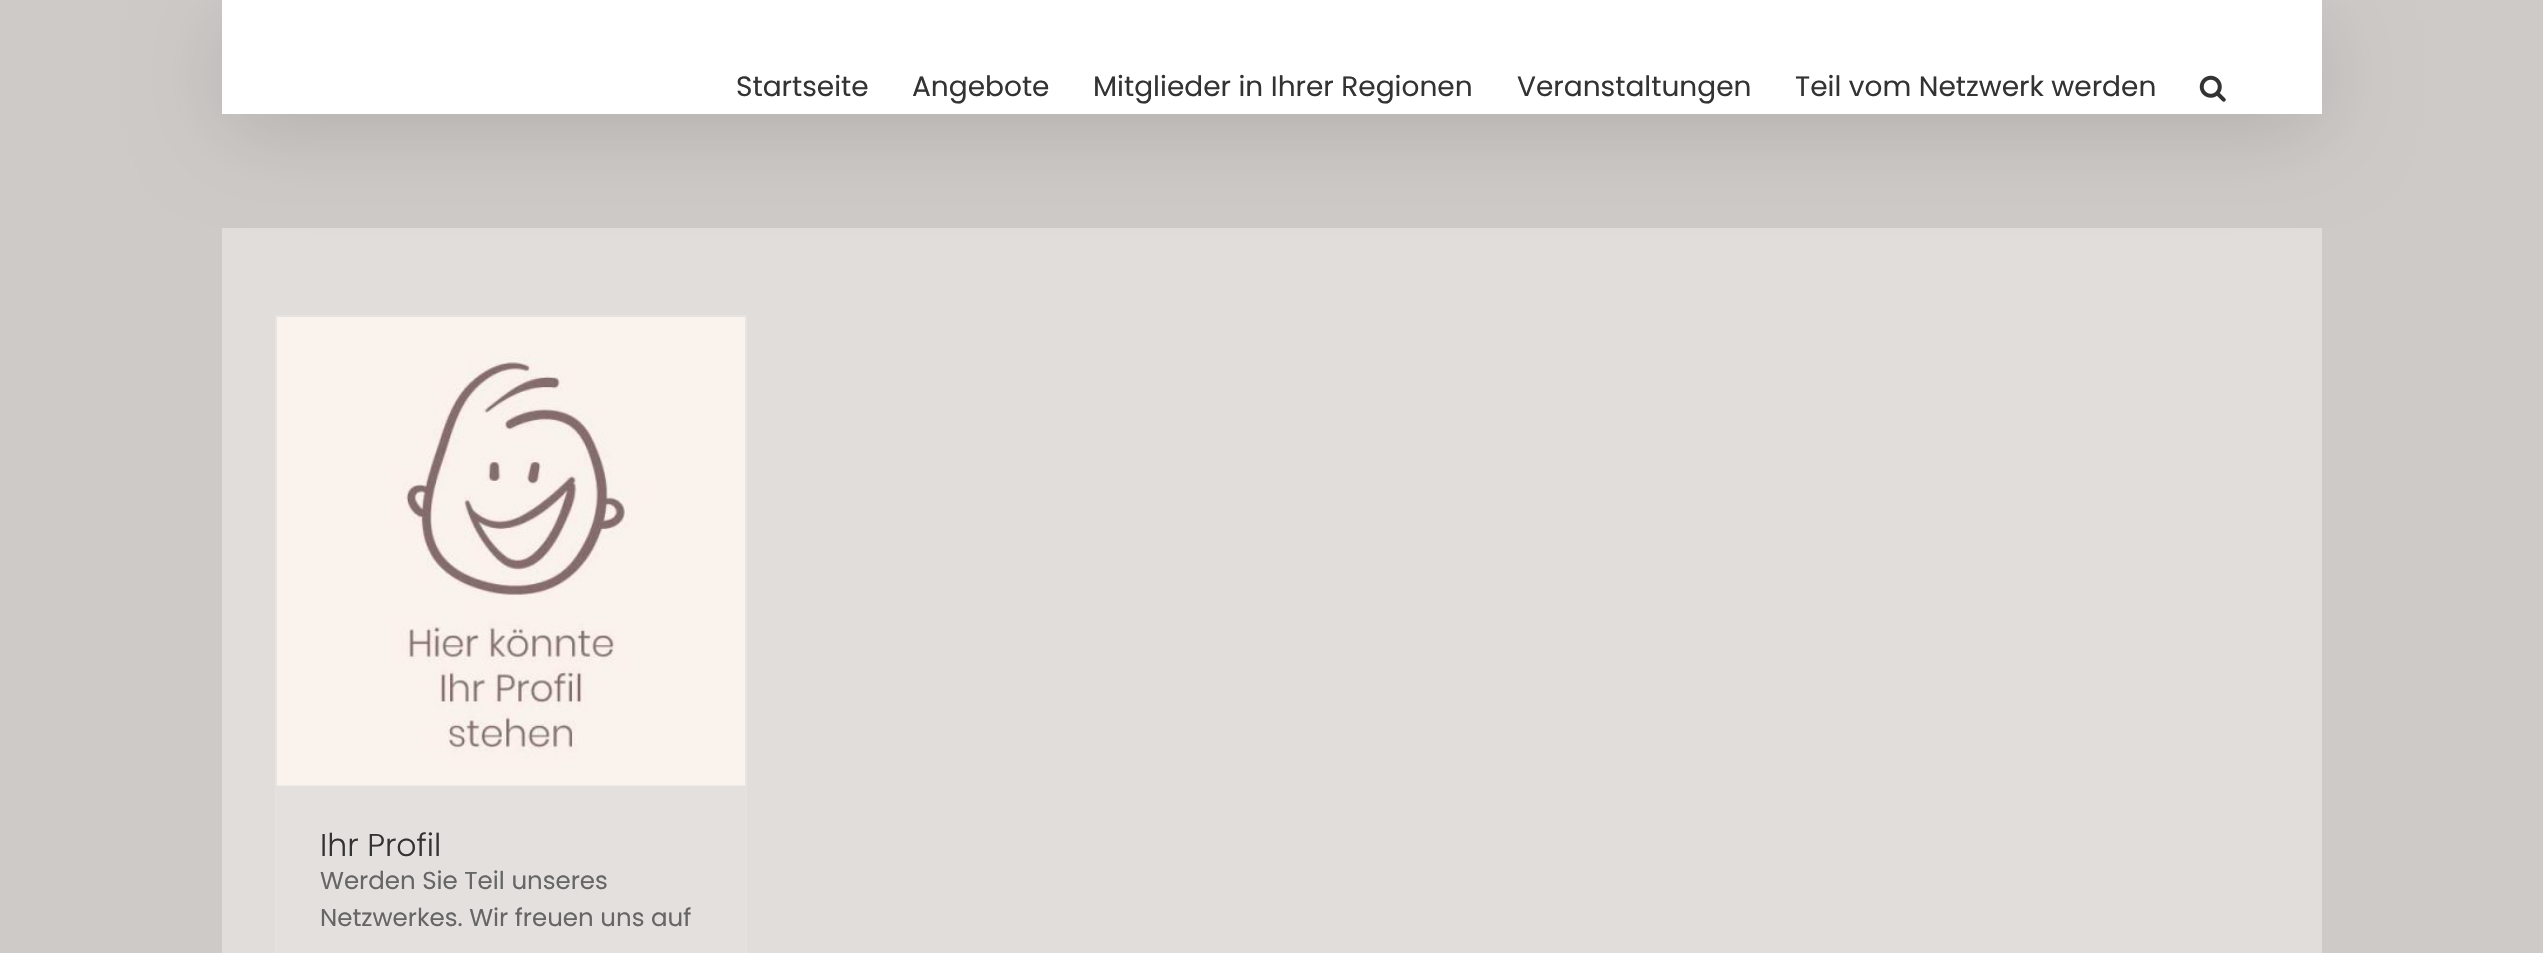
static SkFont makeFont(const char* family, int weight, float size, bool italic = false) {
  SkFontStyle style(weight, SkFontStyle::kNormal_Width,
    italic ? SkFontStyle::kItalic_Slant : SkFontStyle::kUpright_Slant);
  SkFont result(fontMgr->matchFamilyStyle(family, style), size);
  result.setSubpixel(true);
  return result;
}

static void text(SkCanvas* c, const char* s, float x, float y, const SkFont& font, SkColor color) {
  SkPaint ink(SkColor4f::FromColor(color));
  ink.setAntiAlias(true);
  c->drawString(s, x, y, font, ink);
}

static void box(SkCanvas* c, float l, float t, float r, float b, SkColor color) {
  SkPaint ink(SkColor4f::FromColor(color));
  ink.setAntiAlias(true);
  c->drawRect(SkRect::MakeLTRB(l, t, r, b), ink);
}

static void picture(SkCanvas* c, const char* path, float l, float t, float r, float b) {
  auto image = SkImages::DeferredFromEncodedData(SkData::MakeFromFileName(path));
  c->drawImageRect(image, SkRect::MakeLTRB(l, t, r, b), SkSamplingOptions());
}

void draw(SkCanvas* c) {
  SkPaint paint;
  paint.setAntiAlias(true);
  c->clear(0xffcecac7);
  box(c, 222, 228, 2322, 953, 0xffe1ddda);
  paint.setColor(0x24000000);
  paint.setMaskFilter(SkMaskFilter::MakeBlur(kNormal_SkBlurStyle, 44));
  c->drawRect(SkRect::MakeLTRB(226, 21, 2319, 128), paint);
  paint.setMaskFilter(nullptr);
  box(c, 222, 0, 2322, 114, 0xffffffff);
  SkFont face1 = makeFont("Poppins", 400, 28);
  text(c, "Startseite", 736, 96, face1, 0xff333333);
  text(c, "Angebote", 912, 96, face1, 0xff333333);
  text(c, "Mitglieder in Ihrer Regionen", 1093, 96, face1, 0xff333333);
  text(c, "Veranstaltungen", 1517, 96, face1, 0xff333333);
  text(c, "Teil vom Netzwerk werden", 1795, 96, face1, 0xff333333);
  picture(c, "img_01.png", 2199, 75, 2226, 102);
  box(c, 275, 315, 747, 953, 0xffe3e0dd);
  paint.setColor(0xffe6e3e0);
  c->drawPath(SkPathBuilder().moveTo(275, 315).lineTo(747, 315).lineTo(746, 317).lineTo(276, 317).close().detach(), paint);
  c->drawPath(SkPathBuilder().moveTo(747, 315).lineTo(747, 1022).lineTo(746, 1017).lineTo(746, 317).close().detach(), paint);
  c->drawPath(SkPathBuilder().moveTo(275, 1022).lineTo(275, 315).lineTo(276, 317).lineTo(276, 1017).close().detach(), paint);
  picture(c, "img_02.png", 276, 317, 746, 786);
  SkFont face2 = makeFont("Poppins", 300, 31.5f);
  text(c, "Ihr Profil", 320, 856, face2, 0xff333333);
  SkFont face3 = makeFont("Poppins", 400, 24.5f);
  text(c, "Werden Sie Teil unseres", 320, 889, face3, 0xff666666);
  text(c, "Netzwerkes. Wir freuen uns auf", 320, 926, face3, 0xff666666);
}
